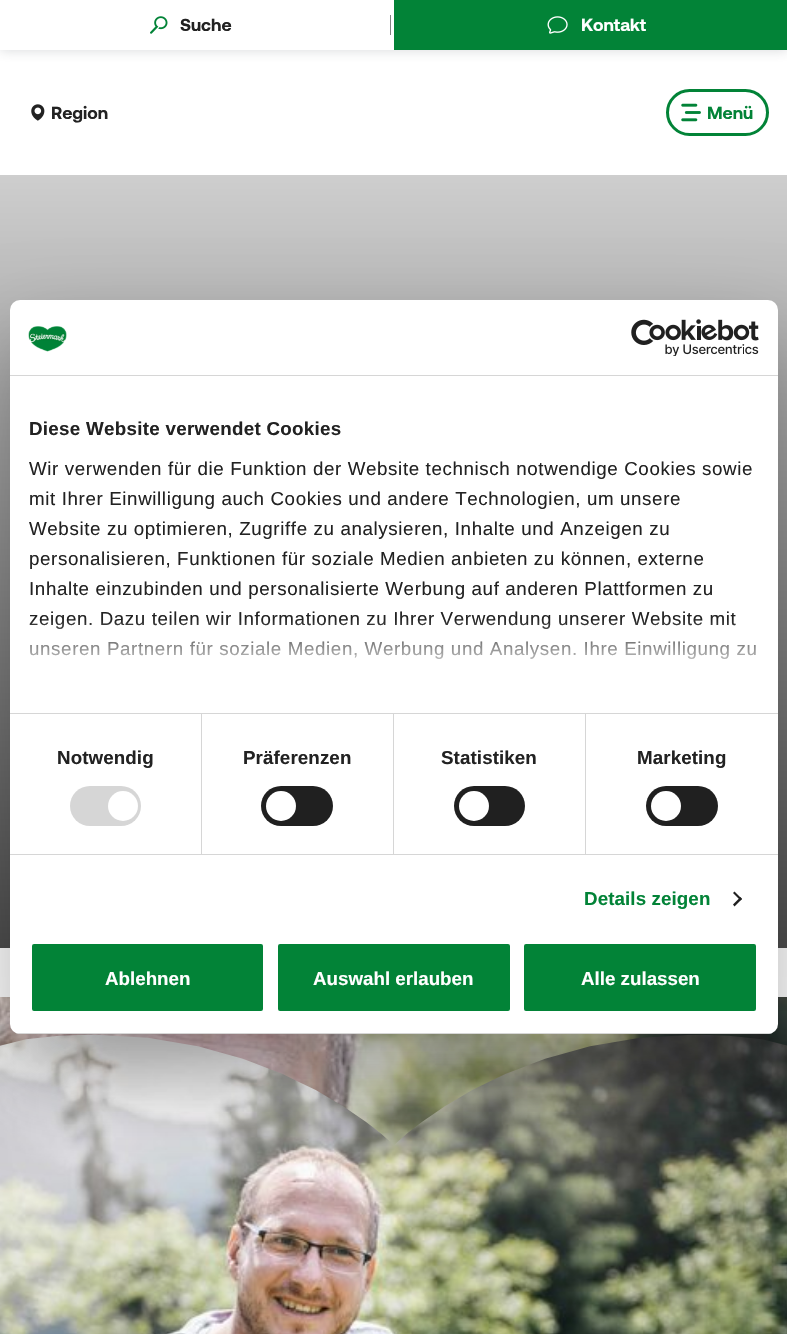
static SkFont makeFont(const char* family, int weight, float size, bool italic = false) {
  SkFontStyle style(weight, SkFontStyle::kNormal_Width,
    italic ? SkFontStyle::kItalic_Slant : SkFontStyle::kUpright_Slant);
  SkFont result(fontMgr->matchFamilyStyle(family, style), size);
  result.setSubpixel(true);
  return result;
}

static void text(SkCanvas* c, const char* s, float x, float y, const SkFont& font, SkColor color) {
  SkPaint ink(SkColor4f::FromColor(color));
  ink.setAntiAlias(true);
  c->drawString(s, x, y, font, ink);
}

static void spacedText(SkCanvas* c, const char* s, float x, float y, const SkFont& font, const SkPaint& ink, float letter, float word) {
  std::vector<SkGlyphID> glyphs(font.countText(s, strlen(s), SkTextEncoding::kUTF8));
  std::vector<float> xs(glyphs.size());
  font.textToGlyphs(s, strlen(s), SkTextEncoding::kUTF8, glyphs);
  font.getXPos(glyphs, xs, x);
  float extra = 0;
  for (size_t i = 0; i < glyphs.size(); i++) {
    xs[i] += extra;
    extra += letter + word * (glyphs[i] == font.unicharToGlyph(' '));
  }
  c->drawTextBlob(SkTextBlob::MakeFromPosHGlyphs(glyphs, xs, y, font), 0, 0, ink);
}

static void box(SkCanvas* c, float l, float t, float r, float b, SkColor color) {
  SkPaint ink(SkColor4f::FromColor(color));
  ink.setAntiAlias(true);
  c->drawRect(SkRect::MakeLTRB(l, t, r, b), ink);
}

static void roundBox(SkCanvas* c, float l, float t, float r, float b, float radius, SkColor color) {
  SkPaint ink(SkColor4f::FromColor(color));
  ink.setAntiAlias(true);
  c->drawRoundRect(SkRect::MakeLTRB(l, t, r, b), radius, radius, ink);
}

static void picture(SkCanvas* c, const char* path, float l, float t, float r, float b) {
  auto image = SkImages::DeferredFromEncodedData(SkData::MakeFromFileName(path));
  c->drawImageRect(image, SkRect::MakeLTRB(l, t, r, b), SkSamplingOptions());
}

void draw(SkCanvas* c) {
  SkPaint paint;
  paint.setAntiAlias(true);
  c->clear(0xffffffff);
  paint.setColor(0x33323c46);
  paint.setMaskFilter(SkMaskFilter::MakeBlur(kNormal_SkBlurStyle, 6));
  c->drawRect(SkRect::MakeLTRB(0, 0, 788, 50), paint);
  paint.setMaskFilter(nullptr);
  box(c, 0, 0, 394, 50, 0xffffffff);
  picture(c, "img_01.png", 150, 16, 168, 34);
  SkFont face1 = makeFont("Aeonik", 700, 17.5f);
  text(c, "Suche", 180, 31, face1, 0xff222222);
  box(c, 390, 15, 391, 35, 0xff838383);
  box(c, 394, 0, 787, 50, 0xff028337);
  picture(c, "img_02.png", 547, 16, 568, 34);
  text(c, "Kontakt", 581, 31, face1, 0xffffffff);
  picture(c, "img_03.png", 31, 104, 45, 121);
  text(c, "Region", 51, 119, face1, 0xff222222);
  paint.setStyle(SkPaint::kStroke_Style);
  paint.setStrokeWidth(3);
  paint.setColor(0xff028337);
  c->drawRoundRect(SkRect::MakeLTRB(667.5f, 90.5f, 767.5f, 134.5f), 22, 22, paint);
  picture(c, "img_04.png", 681, 103, 701, 122);
  text(c, "Menü", 707, 119, face1, 0xff028337);
  paint.setStyle(SkPaint::kFill_Style);
  {
    const SkColor colors[] = {0xffffffff, 0xff4d4d4d};
    const float stops[] = {0, 1};
    const SkPoint ends[] = {{394, -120}, {394, 948}};
    paint.setShader(SkGradientShader::MakeLinear(ends, colors, stops, 2, SkTileMode::kClamp));
    paint.setAlpha(255);
  }
  c->drawRect(SkRect::MakeLTRB(0, 175, 787, 948), paint);
  picture(c, "img_05.png", 0, 997, 787, 1146);
  picture(c, "img_06.png", 0, 1034, 787, 1334);
  paint.setShader(nullptr);
  paint.setColor(0x4d000000);
  paint.setMaskFilter(SkMaskFilter::MakeBlur(kNormal_SkBlurStyle, 42.5f));
  c->drawRoundRect(SkRect::MakeLTRB(10, 340, 778, 1074), 10, 10, paint);
  paint.setMaskFilter(nullptr);
  roundBox(c, 10, 300, 778, 1034, 10, 0xffffffff);
  box(c, 10, 375, 778, 376, 0xffd6d6d6);
  picture(c, "img_07.png", 28, 326, 67, 352);
  picture(c, "img_08.png", 631, 319, 759, 356);
  box(c, 10, 713, 778, 714, 0xffd6d6d6);
  SkFont face2 = makeFont("Liberation Sans", 700, 18.75f);
  paint.setColor(0xff222222);
  spacedText(c, "Diese Website verwendet Cookies", 29, 435, face2, paint, 0.3f, 0);
  SkFont face3 = makeFont("Liberation Sans", 400, 18.75f);
  spacedText(c, "Wir verwenden für die Funktion der Website technisch notwendige Cookies sowie", 29, 475, face3, paint, 0.62f, 0);
  spacedText(c, "mit Ihrer Einwilligung auch Cookies und andere Technologien, um unsere", 29, 505, face3, paint, 0.62f, 0);
  spacedText(c, "Website zu optimieren, Zugriffe zu analysieren, Inhalte und Anzeigen zu", 29, 535, face3, paint, 0.62f, 0);
  spacedText(c, "personalisieren, Funktionen für soziale Medien anbieten zu können, externe", 29, 565, face3, paint, 0.62f, 0);
  spacedText(c, "Inhalte einzubinden und personalisierte Werbung auf anderen Plattformen zu", 29, 595, face3, paint, 0.62f, 0);
  spacedText(c, "zeigen. Dazu teilen wir Informationen zu Ihrer Verwendung unserer Website mit", 29, 625, face3, paint, 0.62f, 0);
  spacedText(c, "unseren Partnern für soziale Medien, Werbung und Analysen. Ihre Einwilligung zu", 29, 655, face3, paint, 0.62f, 0);
  {
    const SkColor colors[] = {0xffffffff, 0xccffffff, 0x00ffffff};
    const float stops[] = {0, 0.5f, 1};
    const SkPoint ends[] = {{386, 713}, {386, 619}};
    paint.setShader(SkGradientShader::MakeLinear(ends, colors, stops, 3, SkTileMode::kClamp));
    paint.setAlpha(255);
  }
  c->drawRect(SkRect::MakeLTRB(29, 620, 756, 659), paint);
  box(c, 10, 854, 778, 855, 0xffd6d6d6);
  box(c, 201, 714, 202, 854, 0xffd6d6d6);
  paint.setShader(nullptr);
  paint.setColor(0xff222222);
  spacedText(c, "Notwendig", 57, 764, face2, paint, 0.1f, 0);
  roundBox(c, 70, 786, 141, 826, 20, 0xffd6d6d6);
  paint.setColor(0xffffffff);
  c->drawCircle(123, 806, 15, paint);
  box(c, 393, 714, 394, 854, 0xffd6d6d6);
  paint.setColor(0xff222222);
  spacedText(c, "Präferenzen", 243, 764, face2, paint, 0.1f, 0);
  roundBox(c, 261, 786, 333, 826, 20, 0xff202020);
  paint.setColor(0xffffffff);
  c->drawCircle(281, 806, 15, paint);
  box(c, 585, 714, 586, 854, 0xffd6d6d6);
  paint.setColor(0xff222222);
  spacedText(c, "Statistiken", 441, 764, face2, paint, 0.1f, 0);
  roundBox(c, 454, 786, 525, 826, 20, 0xff202020);
  paint.setColor(0xffffffff);
  c->drawCircle(474, 806, 15, paint);
  paint.setColor(0xff222222);
  spacedText(c, "Marketing", 637, 764, face2, paint, 0.1f, 0);
  roundBox(c, 646, 786, 718, 826, 20, 0xff202020);
  paint.setColor(0xffffffff);
  c->drawCircle(666, 806, 15, paint);
  paint.setColor(0xff028337);
  spacedText(c, "Details zeigen", 584, 905, face2, paint, 0.1f, 0);
  paint.setColor(0xff202020);
  c->drawPath(SkPathBuilder().moveTo(734.5f, 891.5f).lineTo(742, 899).lineTo(740.5f, 900.5f).lineTo(733, 893).close().detach(), paint);
  c->drawPath(SkPathBuilder().moveTo(740.5f, 897).lineTo(742, 899).lineTo(734.5f, 906.5f).lineTo(733, 904.5f).close().detach(), paint);
  c->save();
  c->clipPath(SkPathBuilder().moveTo(20, 300).lineTo(768, 300).cubicTo(773.5f, 300, 778, 304.5f, 778, 310).lineTo(778, 1024).cubicTo(778, 1029.5f, 773.5f, 1034, 768, 1034).lineTo(20, 1034).cubicTo(14.5f, 1034, 10, 1029.5f, 10, 1024).lineTo(10, 310).cubicTo(10, 304.5f, 14.5f, 300, 20, 300).close().detach(), true);
  box(c, 10, 1033, 778, 1034, 0xffd6d6d6);
  c->restore();
  paint.setColor(0xff028337);
  c->drawRoundRect(SkRect::MakeLTRB(30.5f, 942.5f, 264.5f, 1012.5f), 3.5f, 3.5f, paint);
  paint.setStyle(SkPaint::kStroke_Style);
  paint.setColor(0xffffffff);
  c->drawRoundRect(SkRect::MakeLTRB(30.5f, 942.5f, 264.5f, 1012.5f), 3.5f, 3.5f, paint);
  text(c, "Ablehnen", 105, 985, face2, 0xffffffff);
  paint.setStyle(SkPaint::kFill_Style);
  paint.setColor(0xff028337);
  c->drawRoundRect(SkRect::MakeLTRB(276.5f, 942.5f, 511.5f, 1012.5f), 3.5f, 3.5f, paint);
  paint.setStyle(SkPaint::kStroke_Style);
  paint.setColor(0xffffffff);
  c->drawRoundRect(SkRect::MakeLTRB(276.5f, 942.5f, 511.5f, 1012.5f), 3.5f, 3.5f, paint);
  text(c, "Auswahl erlauben", 313, 985, face2, 0xffffffff);
  paint.setStyle(SkPaint::kFill_Style);
  paint.setColor(0xff028337);
  c->drawRoundRect(SkRect::MakeLTRB(522.5f, 942.5f, 757.5f, 1012.5f), 3.5f, 3.5f, paint);
  paint.setStyle(SkPaint::kStroke_Style);
  paint.setColor(0xffffffff);
  c->drawRoundRect(SkRect::MakeLTRB(522.5f, 942.5f, 757.5f, 1012.5f), 3.5f, 3.5f, paint);
  text(c, "Alle zulassen", 581, 985, face2, 0xffffffff);
}
